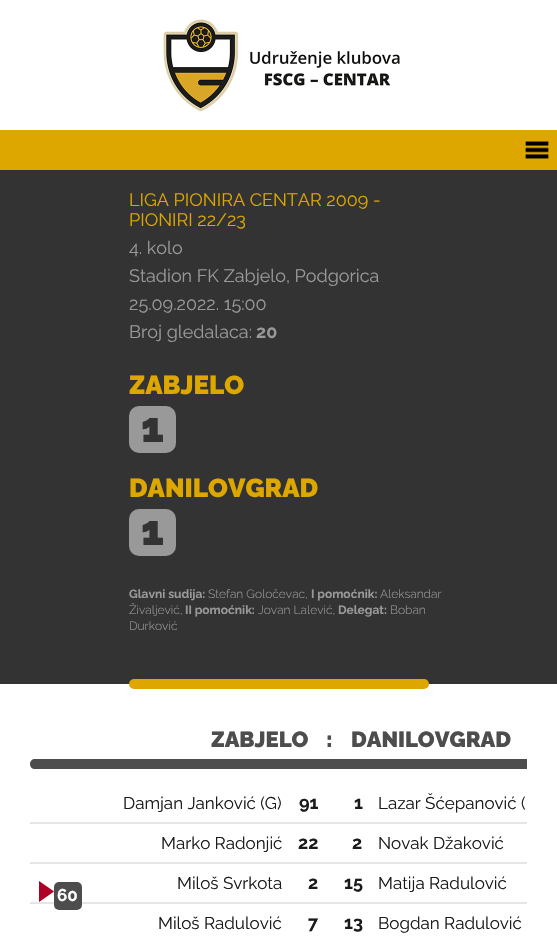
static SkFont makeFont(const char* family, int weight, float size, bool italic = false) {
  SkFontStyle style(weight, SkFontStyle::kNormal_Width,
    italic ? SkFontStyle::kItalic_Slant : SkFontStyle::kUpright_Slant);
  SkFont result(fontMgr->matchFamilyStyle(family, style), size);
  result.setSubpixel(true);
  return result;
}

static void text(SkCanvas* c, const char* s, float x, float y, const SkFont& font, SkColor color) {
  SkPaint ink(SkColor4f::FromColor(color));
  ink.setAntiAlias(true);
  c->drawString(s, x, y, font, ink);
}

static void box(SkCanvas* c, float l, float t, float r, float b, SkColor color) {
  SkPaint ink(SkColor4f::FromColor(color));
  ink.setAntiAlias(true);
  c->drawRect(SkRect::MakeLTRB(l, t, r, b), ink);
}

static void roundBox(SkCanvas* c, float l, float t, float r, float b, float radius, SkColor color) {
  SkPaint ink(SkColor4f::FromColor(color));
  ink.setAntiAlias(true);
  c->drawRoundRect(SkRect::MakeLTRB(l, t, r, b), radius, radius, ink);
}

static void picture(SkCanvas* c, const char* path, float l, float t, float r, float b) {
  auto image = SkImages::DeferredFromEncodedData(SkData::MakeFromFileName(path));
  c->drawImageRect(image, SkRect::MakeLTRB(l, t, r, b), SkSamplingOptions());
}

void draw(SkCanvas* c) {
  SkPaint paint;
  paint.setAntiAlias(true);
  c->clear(0xffffffff);
  picture(c, "img_01.png", 140, 19, 400, 112);
  box(c, 0, 130, 557, 170, 0xffdda700);
  picture(c, "img_02.png", 525, 141, 549, 159);
  box(c, 0, 170, 557, 684, 0xff333333);
  SkFont face1 = makeFont("Raleway", 400, 18);
  text(c, "LIGA PIONIRA CENTAR 2009 -", 129, 206, face1, 0xffdda700);
  text(c, "PIONIRI 22/23", 129, 226, face1, 0xffdda700);
  text(c, "4. kolo", 129, 254, face1, 0xff999999);
  text(c, "Stadion FK Zabjelo, Podgorica", 129, 282, face1, 0xff999999);
  text(c, "25.09.2022. 15:00", 129, 310, face1, 0xff999999);
  text(c, "Broj gledalaca:", 129, 338, face1, 0xff999999);
  SkFont face2 = makeFont("Raleway", 700, 18);
  text(c, "20", 256, 338, face2, 0xff999999);
  SkFont face3 = makeFont("Raleway", 900, 26);
  text(c, "ZABJELO", 129, 394, face3, 0xffdda700);
  roundBox(c, 129, 406, 176, 453, 10, 0xff999999);
  SkFont face4 = makeFont("Raleway", 900, 42);
  text(c, "1", 141, 442, face4, 0xff333333);
  text(c, "DANILOVGRAD", 129, 497, face3, 0xffdda700);
  roundBox(c, 129, 509, 176, 556, 10, 0xff999999);
  text(c, "1", 141, 545, face4, 0xff333333);
  SkFont face5 = makeFont("Raleway", 700, 12);
  text(c, "Glavni sudija:", 129, 598, face5, 0xff999999);
  SkFont face6 = makeFont("Raleway", 300, 12);
  text(c, "Stefan Goločevac,", 208, 598, face6, 0xff999999);
  text(c, "I pomoćnik:", 311, 598, face5, 0xff999999);
  text(c, "Aleksandar", 380, 598, face6, 0xff999999);
  text(c, "Živaljević,", 129, 614, face6, 0xff999999);
  text(c, "II pomoćnik:", 185, 614, face5, 0xff999999);
  text(c, "Jovan Lalević,", 258, 614, face6, 0xff999999);
  text(c, "Delegat:", 338, 614, face5, 0xff999999);
  text(c, "Boban", 390, 614, face6, 0xff999999);
  text(c, "Durković", 129, 630, face6, 0xff999999);
  roundBox(c, 129, 679, 429, 689, 5, 0xffdda700);
  SkFont face7 = makeFont("Raleway", 900, 22);
  text(c, "ZABJELO", 211, 747, face7, 0xff4d4d4d);
  text(c, ":", 326, 747, face7, 0xff4d4d4d);
  text(c, "DANILOVGRAD", 351, 747, face7, 0xff4d4d4d);
  paint.setColor(0xff4d4d4d);
  c->drawPath(SkPathBuilder().moveTo(35, 759).lineTo(527, 759).lineTo(527, 769).lineTo(35, 769).cubicTo(32, 769, 30, 767, 30, 764).cubicTo(30, 761, 32, 759, 35, 759).close().detach(), paint);
  box(c, 30, 822, 527, 824, 0xffe5e5e5);
  SkFont face8 = makeFont("Raleway", 400, 17);
  text(c, "Damjan Janković (G)", 123, 809, face8, 0xff1a1a1a);
  text(c, "91", 299, 809, face2, 0xff1a1a1a);
  text(c, "1", 354, 809, face2, 0xff1a1a1a);
  text(c, "Lazar Šćepanović (", 378, 809, face8, 0xff1a1a1a);
  box(c, 30, 862, 527, 864, 0xffe5e5e5);
  text(c, "Marko Radonjić", 161, 849, face8, 0xff1a1a1a);
  text(c, "22", 298, 849, face2, 0xff1a1a1a);
  text(c, "2", 352, 849, face2, 0xff1a1a1a);
  text(c, "Novak Džaković", 378, 849, face8, 0xff1a1a1a);
  box(c, 30, 902, 527, 904, 0xffe5e5e5);
  text(c, "Miloš Svrkota", 177, 889, face8, 0xff1a1a1a);
  picture(c, "img_03.png", 39, 881, 54, 902);
  roundBox(c, 54, 882, 82, 910, 5, 0xff4d4d4d);
  SkFont face9 = makeFont("Raleway", 700, 17);
  text(c, "60", 57, 901, face9, 0xffffffff);
  text(c, "2", 308, 889, face2, 0xff1a1a1a);
  text(c, "15", 344, 889, face2, 0xff1a1a1a);
  text(c, "Matija Radulović", 378, 889, face8, 0xff1a1a1a);
  text(c, "Miloš Radulović", 158, 929, face8, 0xff1a1a1a);
  text(c, "7", 308, 929, face2, 0xff1a1a1a);
  text(c, "13", 344, 929, face2, 0xff1a1a1a);
  text(c, "Bogdan Radulović", 378, 929, face8, 0xff1a1a1a);
}
